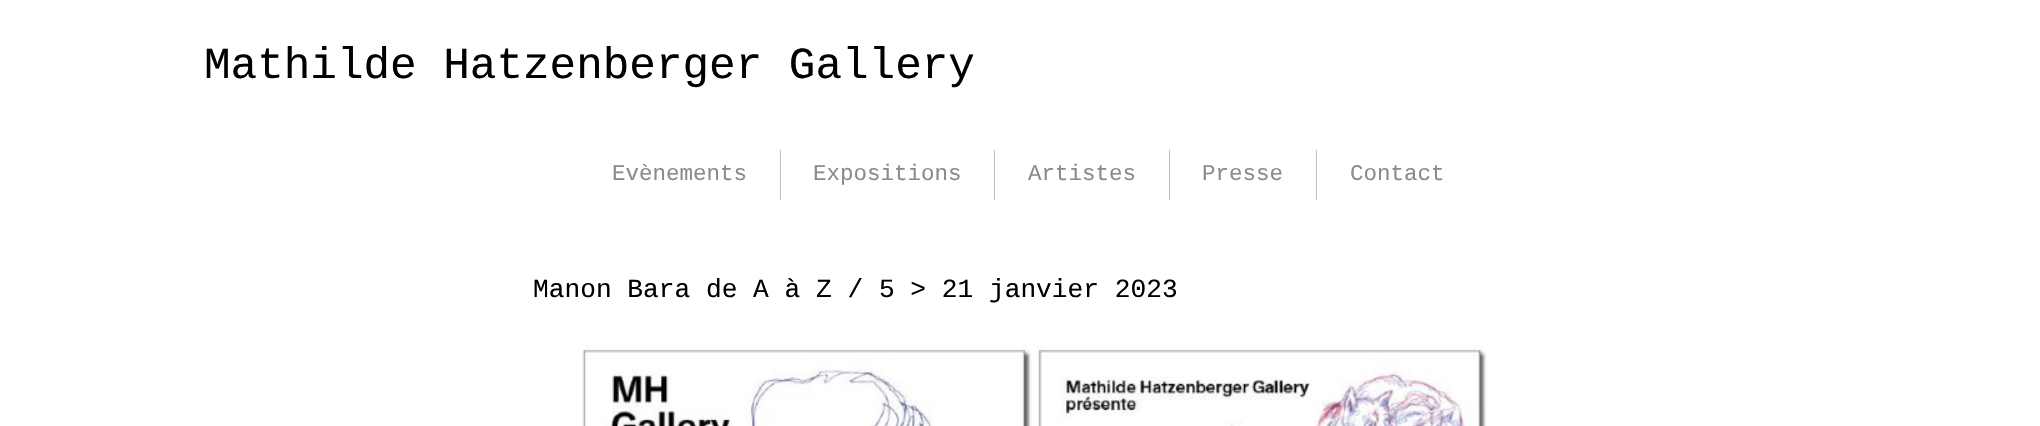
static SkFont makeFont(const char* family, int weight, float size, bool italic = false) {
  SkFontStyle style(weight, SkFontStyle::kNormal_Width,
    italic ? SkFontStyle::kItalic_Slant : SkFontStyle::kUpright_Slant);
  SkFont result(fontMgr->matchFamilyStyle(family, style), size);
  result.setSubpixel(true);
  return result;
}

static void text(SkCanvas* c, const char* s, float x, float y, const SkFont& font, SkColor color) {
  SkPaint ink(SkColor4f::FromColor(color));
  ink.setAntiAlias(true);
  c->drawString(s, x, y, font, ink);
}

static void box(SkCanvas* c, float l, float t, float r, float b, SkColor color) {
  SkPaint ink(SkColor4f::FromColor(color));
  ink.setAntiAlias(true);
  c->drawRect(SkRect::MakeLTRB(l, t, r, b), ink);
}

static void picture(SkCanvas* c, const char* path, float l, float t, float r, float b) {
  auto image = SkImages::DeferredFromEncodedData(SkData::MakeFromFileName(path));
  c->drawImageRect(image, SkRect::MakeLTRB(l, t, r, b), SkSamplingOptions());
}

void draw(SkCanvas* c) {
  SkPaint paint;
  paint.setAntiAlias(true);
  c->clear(0xffffffff);
  SkFont face1 = makeFont("Liberation Mono", 400, 44.3f);
  text(c, "Mathilde Hatzenberger Gallery", 204, 78, face1, 0xff000000);
  SkFont face2 = makeFont("Liberation Mono", 400, 22.5f);
  text(c, "Evènements", 612, 180, face2, 0xff868f83);
  text(c, "Expositions", 813, 180, face2, 0xff868f83);
  box(c, 780, 150, 781, 200, 0xffbbc1bc);
  text(c, "Artistes", 1028, 180, face2, 0xff868f83);
  box(c, 994, 150, 995, 200, 0xffbbc1bc);
  text(c, "Presse", 1202, 180, face2, 0xff868f83);
  box(c, 1169, 150, 1170, 200, 0xffbbc1bc);
  text(c, "Contact", 1350, 180, face2, 0xff868f83);
  box(c, 1316, 150, 1317, 200, 0xffbbc1bc);
  SkFont face3 = makeFont("Liberation Mono", 400, 26.2f);
  text(c, "Manon Bara de A à Z / 5 > 21 janvier 2023", 533, 297, face3, 0xff000000);
  picture(c, "img_01.png", 582, 345, 1487, 426);
}
